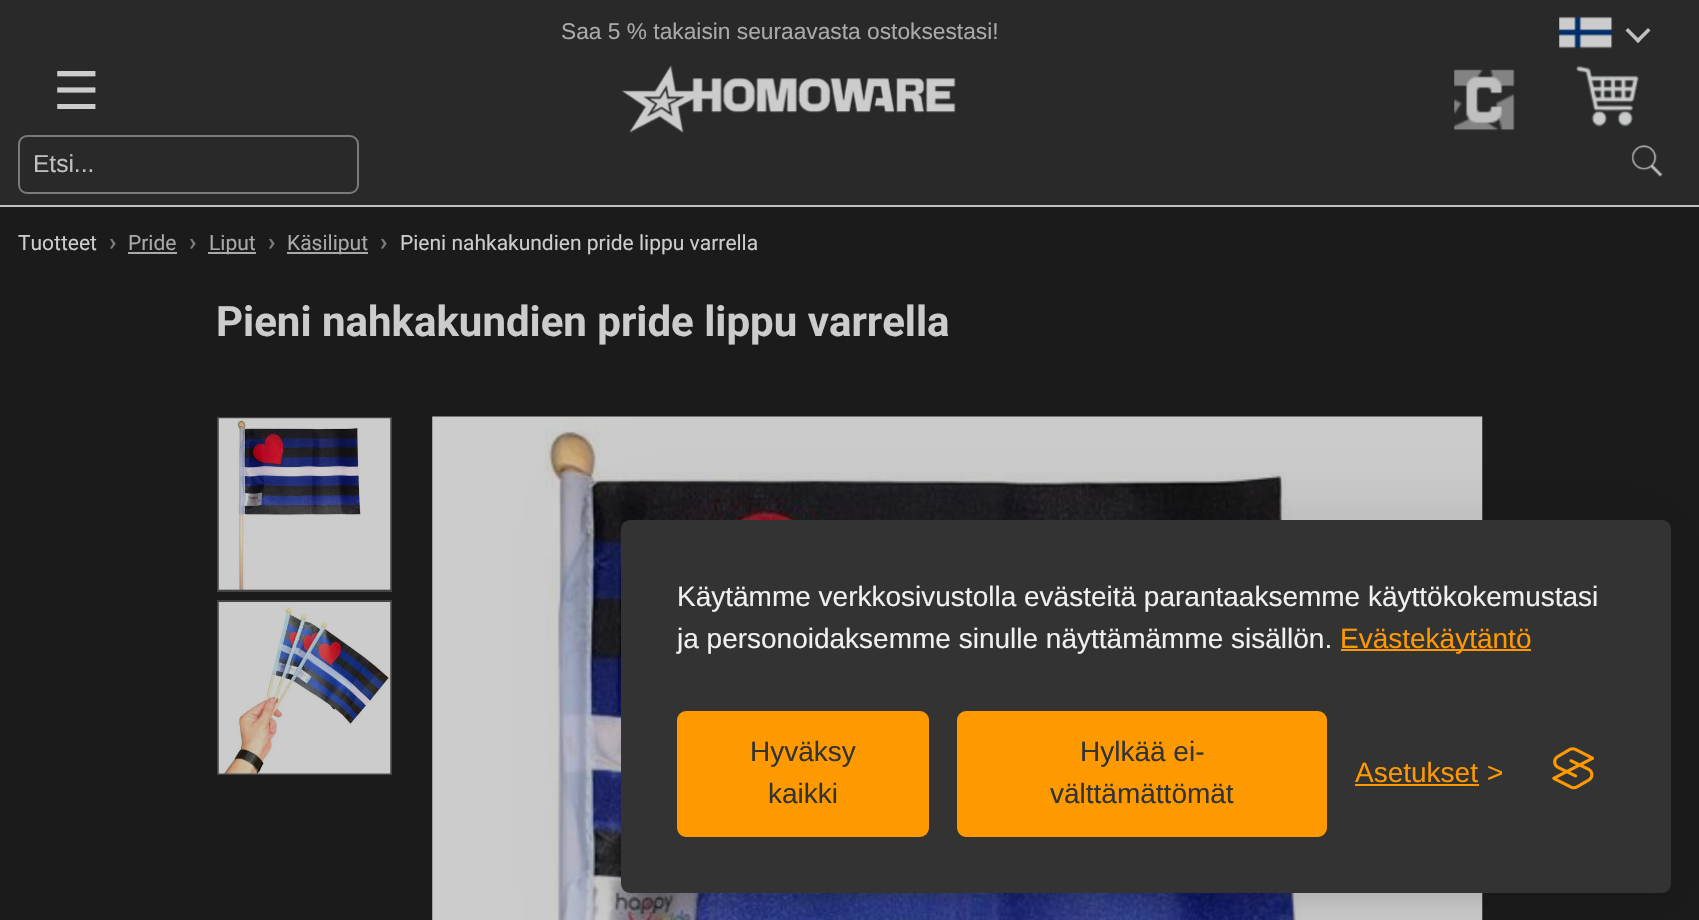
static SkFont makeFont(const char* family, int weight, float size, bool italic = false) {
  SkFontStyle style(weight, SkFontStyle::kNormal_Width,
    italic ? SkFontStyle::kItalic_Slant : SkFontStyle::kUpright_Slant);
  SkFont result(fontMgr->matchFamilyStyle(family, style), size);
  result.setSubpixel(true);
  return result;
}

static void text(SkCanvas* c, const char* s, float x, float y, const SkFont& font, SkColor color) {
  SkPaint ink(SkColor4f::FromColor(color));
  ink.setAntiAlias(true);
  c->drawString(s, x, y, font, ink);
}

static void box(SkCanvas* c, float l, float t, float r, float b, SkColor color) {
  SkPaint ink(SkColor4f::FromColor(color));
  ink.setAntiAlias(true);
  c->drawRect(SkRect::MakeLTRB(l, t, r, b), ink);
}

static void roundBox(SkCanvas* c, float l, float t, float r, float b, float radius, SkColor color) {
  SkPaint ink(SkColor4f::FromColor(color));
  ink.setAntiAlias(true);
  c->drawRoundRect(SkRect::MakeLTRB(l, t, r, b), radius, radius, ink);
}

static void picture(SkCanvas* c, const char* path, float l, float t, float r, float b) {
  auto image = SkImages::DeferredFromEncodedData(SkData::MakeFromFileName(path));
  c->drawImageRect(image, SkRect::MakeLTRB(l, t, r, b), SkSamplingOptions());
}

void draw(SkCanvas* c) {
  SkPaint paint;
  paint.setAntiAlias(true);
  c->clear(0xff1b1b1b);
  box(c, 0, 0, 1699, 205, 0xff292929);
  SkFont face1 = makeFont("Liberation Sans", 400, 22.75f);
  text(c, "Saa 5 % takaisin seuraavasta ostoksestasi!", 561, 39, face1, 0xffa9a9a9);
  picture(c, "img_01.png", 1559, 16, 1613, 49);
  paint.setColor(0xffc0c0c0);
  c->drawPath(SkPathBuilder().moveTo(1648, 28).lineTo(1650.5f, 30.5f).lineTo(1638, 43).lineTo(1635.5f, 40.5f).close().detach(), paint);
  c->drawPath(SkPathBuilder().moveTo(1628, 28).lineTo(1640.5f, 40.5f).lineTo(1638, 43).lineTo(1625.5f, 30.5f).close().detach(), paint);
  SkFont face2 = makeFont("DejaVu Sans", 400, 52);
  text(c, "☰", 53, 109, face2, 0xffcccccc);
  picture(c, "img_02.png", 622, 65, 956, 133);
  picture(c, "img_03.png", 1454, 69, 1515, 131);
  picture(c, "img_04.png", 1576, 66, 1639, 127);
  box(c, 0, 205, 1699, 207, 0xffc0c0c0);
  paint.setStyle(SkPaint::kStroke_Style);
  paint.setStrokeWidth(2);
  paint.setColor(0xff7a7a7a);
  c->drawRoundRect(SkRect::MakeLTRB(19, 136, 358, 193), 8, 8, paint);
  SkFont face3 = makeFont("Liberation Sans", 400, 24.5f);
  text(c, "Etsi...", 33, 172, face3, 0xffc0c0c0);
  picture(c, "img_05.png", 1631, 145, 1663, 177);
  SkFont face4 = makeFont("Roboto", 400, 21);
  text(c, "Tuotteet", 18, 250, face4, 0xffcccccc);
  SkFont face5 = makeFont("Roboto", 700, 24.5f);
  text(c, "›", 109, 250, face5, 0xff7a7a7a);
  text(c, "Pride", 128, 250, face4, 0xffa9a9a9);
  box(c, 128, 252, 177, 254, 0xffa9a9a9);
  text(c, "›", 189, 250, face5, 0xff7a7a7a);
  box(c, 208, 252, 256, 254, 0xffa9a9a9);
  text(c, "Liput", 209, 250, face4, 0xffa9a9a9);
  text(c, "›", 268, 250, face5, 0xff7a7a7a);
  box(c, 287, 252, 368, 254, 0xffa9a9a9);
  text(c, "Käsiliput", 287, 250, face4, 0xffa9a9a9);
  text(c, "›", 380, 250, face5, 0xff7a7a7a);
  text(c, "Pieni nahkakundien pride lippu varrella", 400, 250, face4, 0xffcccccc);
  SkFont face6 = makeFont("Roboto", 700, 42);
  text(c, "Pieni nahkakundien pride lippu varrella", 216, 336, face6, 0xffcccccc);
  paint.setColor(0xff444444);
  c->drawRect(SkRect::MakeLTRB(218, 418, 391, 591), paint);
  picture(c, "img_06.png", 218, 418, 391, 590);
  c->drawRect(SkRect::MakeLTRB(218, 601, 391, 774), paint);
  picture(c, "img_07.png", 218, 602, 391, 774);
  picture(c, "img_08.png", 432, 416, 1483, 920);
  paint.setStyle(SkPaint::kFill_Style);
  paint.setColor(0x1a000000);
  paint.setMaskFilter(SkMaskFilter::MakeBlur(kNormal_SkBlurStyle, 44));
  c->drawRoundRect(SkRect::MakeLTRB(621, 520, 1671, 893), 9, 9, paint);
  paint.setMaskFilter(nullptr);
  paint.setColor(0x12000000);
  paint.setMaskFilter(SkMaskFilter::MakeBlur(kNormal_SkBlurStyle, 9));
  c->drawRoundRect(SkRect::MakeLTRB(613, 529, 1663, 901), 9, 9, paint);
  paint.setMaskFilter(nullptr);
  roundBox(c, 621, 520, 1671, 893, 9, 0xff333333);
  SkFont face7 = makeFont("Liberation Sans", 400, 28);
  text(c, "Käytämme verkkosivustolla evästeitä parantaaksemme käyttökokemustasi", 677, 606, face7, 0xfff0f0f0);
  text(c, "ja personoidaksemme sinulle näyttämämme sisällön.", 677, 648, face7, 0xfff0f0f0);
  box(c, 1341, 649, 1531, 651, 0xffff9900);
  text(c, "Evästekäytäntö", 1340, 648, face7, 0xffff9900);
  paint.setColor(0xffff9900);
  c->drawRoundRect(SkRect::MakeLTRB(679, 713, 927, 835), 7, 7, paint);
  paint.setStyle(SkPaint::kStroke_Style);
  paint.setStrokeWidth(4);
  c->drawRoundRect(SkRect::MakeLTRB(679, 713, 927, 835), 7, 7, paint);
  text(c, "Hyväksy", 750, 761, face7, 0xff333333);
  text(c, "kaikki", 768, 803, face7, 0xff333333);
  paint.setStyle(SkPaint::kFill_Style);
  c->drawRoundRect(SkRect::MakeLTRB(959, 713, 1325, 835), 7, 7, paint);
  paint.setStyle(SkPaint::kStroke_Style);
  c->drawRoundRect(SkRect::MakeLTRB(959, 713, 1325, 835), 7, 7, paint);
  text(c, "Hylkää ei-", 1080, 761, face7, 0xff333333);
  text(c, "välttämättömät", 1050, 803, face7, 0xff333333);
  text(c, "Asetukset", 1355, 782, face7, 0xffff9900);
  box(c, 1355, 784, 1479, 786, 0xffff9900);
  text(c, ">", 1487, 782, face7, 0xffff9900);
  picture(c, "img_09.png", 1552, 747, 1594, 790);
}
